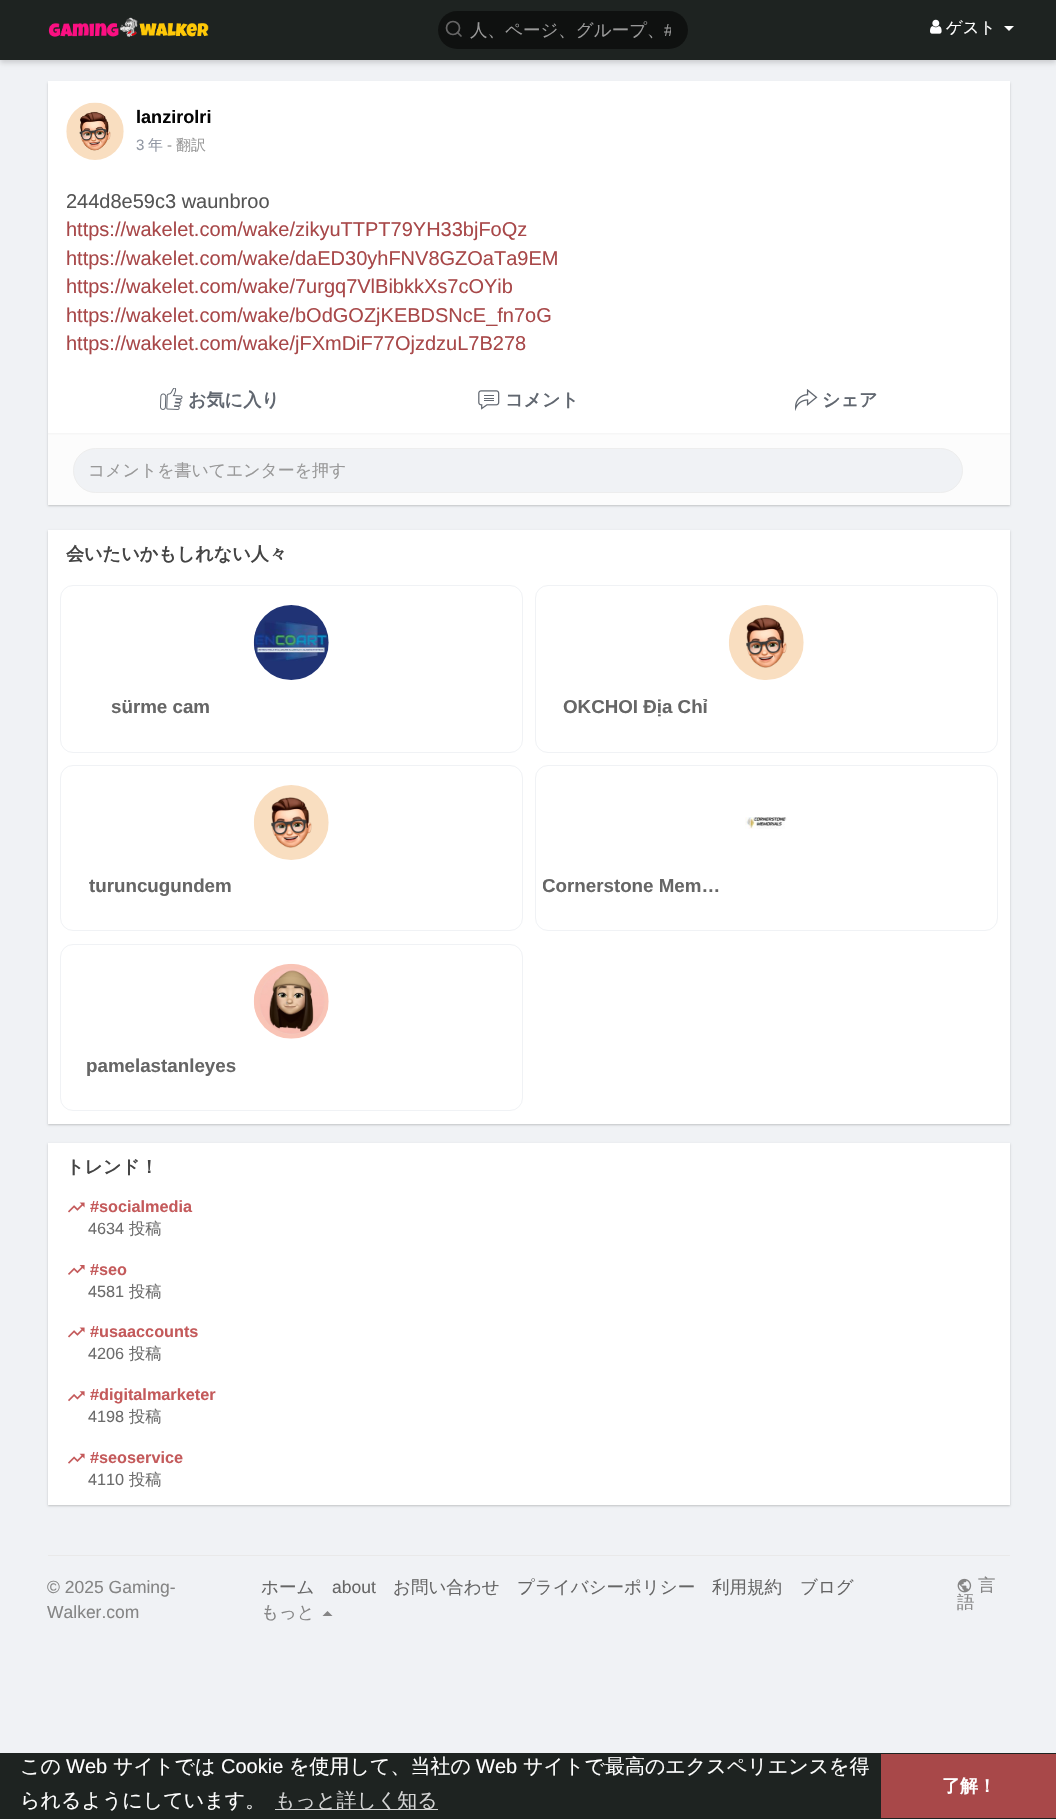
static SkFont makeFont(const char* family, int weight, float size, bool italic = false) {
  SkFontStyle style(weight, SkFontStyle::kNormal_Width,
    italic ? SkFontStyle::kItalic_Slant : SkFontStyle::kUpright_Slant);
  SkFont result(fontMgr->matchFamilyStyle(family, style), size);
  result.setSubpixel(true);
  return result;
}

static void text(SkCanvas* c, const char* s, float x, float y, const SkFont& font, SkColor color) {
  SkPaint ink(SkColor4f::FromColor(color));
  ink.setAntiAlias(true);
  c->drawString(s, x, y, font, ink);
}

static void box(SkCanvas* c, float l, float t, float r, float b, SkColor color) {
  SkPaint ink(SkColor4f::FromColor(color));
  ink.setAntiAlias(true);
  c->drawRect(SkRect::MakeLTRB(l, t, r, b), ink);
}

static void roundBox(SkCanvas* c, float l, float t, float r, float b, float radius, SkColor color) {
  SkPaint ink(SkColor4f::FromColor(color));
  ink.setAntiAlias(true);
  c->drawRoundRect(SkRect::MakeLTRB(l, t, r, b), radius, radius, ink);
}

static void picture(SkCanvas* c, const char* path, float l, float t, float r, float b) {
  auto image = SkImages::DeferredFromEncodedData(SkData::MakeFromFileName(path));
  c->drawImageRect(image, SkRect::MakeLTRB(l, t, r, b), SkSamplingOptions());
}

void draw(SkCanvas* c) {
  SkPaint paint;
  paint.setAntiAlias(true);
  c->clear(0xfff0f2f5);
  paint.setColor(0x26000000);
  paint.setMaskFilter(SkMaskFilter::MakeBlur(kNormal_SkBlurStyle, 2.5f));
  c->drawRect(SkRect::MakeLTRB(0, 3, 1056, 63), paint);
  paint.setMaskFilter(nullptr);
  box(c, 0, 0, 1056, 60, 0xff1e2321);
  picture(c, "img_01.png", 48, 17, 209, 37);
  roundBox(c, 438, 11, 688, 49, 19, 0xff0f1110);
  paint.setStyle(SkPaint::kStroke_Style);
  paint.setStrokeWidth(1.7f);
  paint.setColor(0xff666666);
  c->drawCircle(453, 28, 6.5f, paint);
  paint.setStrokeCap(SkPaint::kRound_Cap);
  paint.setStrokeJoin(SkPaint::kRound_Join);
  c->drawPath(SkPathBuilder().moveTo(461, 36).lineTo(457.5f, 32.5f).detach(), paint);
  SkFont face1 = makeFont("WenQuanYi Zen Hei", 500, 17.5f);
  text(c, "人、ページ、グループ、", 470, 36, face1, 0xff999999);
  c->save();
  c->clipRect(SkRect::MakeLTRB(470, 20, 671, 43));
  SkFont face2 = makeFont("Liberation Sans", 400, 17.5f);
  text(c, "#", 664, 36, face2, 0xff999999);
  c->restore();
  picture(c, "img_02.png", 930, 19, 942, 34);
  SkFont face3 = makeFont("WenQuanYi Zen Hei", 500, 16.25f);
  text(c, "ゲスト", 946, 33, face3, 0xffffffff);
  paint.setStyle(SkPaint::kFill_Style);
  paint.setColor(0xffffffff);
  c->drawPath(SkPathBuilder().moveTo(1004, 26).lineTo(1014, 26).lineTo(1009, 31).close().detach(), paint);
  paint.setColor(0x33000000);
  paint.setMaskFilter(SkMaskFilter::MakeBlur(kNormal_SkBlurStyle, 1));
  c->drawRect(SkRect::MakeLTRB(48, 83, 1010, 506), paint);
  paint.setMaskFilter(nullptr);
  box(c, 48, 81, 1010, 433, 0xffffffff);
  picture(c, "img_03.png", 66, 102, 124, 160);
  SkFont face4 = makeFont("Liberation Sans", 700, 18.1f);
  text(c, "lanzirolri", 136, 123, face4, 0xff050505);
  SkFont face5 = makeFont("Liberation Sans", 400, 15);
  text(c, "3", 136, 150, face5, 0xff9197a3);
  SkFont face6 = makeFont("WenQuanYi Zen Hei", 500, 15);
  text(c, "年", 148, 150, face6, 0xff9197a3);
  text(c, "-", 167, 150, face5, 0xff999999);
  text(c, "翻訳", 176, 150, face6, 0xff999999);
  SkFont face7 = makeFont("Liberation Sans", 400, 20);
  text(c, "244d8e59c3 waunbroo", 66, 208, face7, 0xff555555);
  text(c, "https://wakelet.com/wake/zikyuTTPT79YH33bjFoQz", 66, 236, face7, 0xffa84849);
  text(c, "https://wakelet.com/wake/daED30yhFNV8GZOaTa9EM", 66, 265, face7, 0xffa84849);
  text(c, "https://wakelet.com/wake/7urgq7VlBibkkXs7cOYib", 66, 293, face7, 0xffa84849);
  text(c, "https://wakelet.com/wake/bOdGOZjKEBDSNcE_fn7oG", 66, 322, face7, 0xffa84849);
  text(c, "https://wakelet.com/wake/jFXmDiF77OjzdzuL7B278", 66, 350, face7, 0xffa84849);
  picture(c, "img_04.png", 160, 388, 183, 410);
  SkFont face8 = makeFont("WenQuanYi Zen Hei", 700, 18.1f);
  text(c, "お気に入り", 188, 406, face8, 0xff616770);
  picture(c, "img_05.png", 478, 390, 500, 410);
  text(c, "コメント", 505, 406, face8, 0xff616770);
  picture(c, "img_06.png", 795, 389, 818, 411);
  text(c, "シェア", 822, 406, face8, 0xff616770);
  box(c, 48, 435, 1010, 505, 0xfffcfcfc);
  box(c, 48, 433, 1010, 434, 0xfff6f6f6);
  box(c, 48, 434, 1010, 435, 0xfff9f9f9);
  paint.setColor(0xfff0f2f5);
  c->drawRoundRect(SkRect::MakeLTRB(73.5f, 448.5f, 962.5f, 492.5f), 22, 22, paint);
  paint.setStyle(SkPaint::kStroke_Style);
  paint.setStrokeWidth(1);
  paint.setStrokeCap(SkPaint::kButt_Cap);
  paint.setStrokeJoin(SkPaint::kMiter_Join);
  paint.setColor(0xffededed);
  c->drawRoundRect(SkRect::MakeLTRB(73.5f, 448.5f, 962.5f, 492.5f), 22, 22, paint);
  SkFont face9 = makeFont("WenQuanYi Zen Hei", 500, 16.9f);
  text(c, "コメントを書いてエンターを押す", 88, 476, face9, 0xff999999);
  paint.setStyle(SkPaint::kFill_Style);
  paint.setColor(0x33000000);
  paint.setMaskFilter(SkMaskFilter::MakeBlur(kNormal_SkBlurStyle, 1));
  c->drawRect(SkRect::MakeLTRB(48, 531, 1010, 1125), paint);
  paint.setMaskFilter(nullptr);
  box(c, 48, 530, 1010, 1124, 0xffffffff);
  text(c, "会いたいかもしれない人々", 66, 560, face8, 0xff444444);
  paint.setStyle(SkPaint::kStroke_Style);
  paint.setColor(0xfff0f2f5);
  c->drawRoundRect(SkRect::MakeLTRB(60.5f, 585.5f, 522.5f, 752.5f), 12.5f, 12.5f, paint);
  picture(c, "img_07.png", 253, 605, 329, 680);
  SkFont face10 = makeFont("Liberation Sans", 700, 18.75f);
  text(c, "sürme cam", 111, 713, face10, 0xff666666);
  c->drawRoundRect(SkRect::MakeLTRB(535.5f, 585.5f, 997.5f, 752.5f), 12.5f, 12.5f, paint);
  picture(c, "img_08.png", 728, 605, 804, 680);
  text(c, "OKCHOI Địa Chỉ", 563, 713, face10, 0xff666666);
  c->drawRoundRect(SkRect::MakeLTRB(60.5f, 765.5f, 522.5f, 930.5f), 12.5f, 12.5f, paint);
  picture(c, "img_09.png", 253, 785, 329, 860);
  text(c, "turuncugundem", 89, 892, face10, 0xff666666);
  c->drawRoundRect(SkRect::MakeLTRB(535.5f, 765.5f, 997.5f, 930.5f), 12.5f, 12.5f, paint);
  picture(c, "img_10.png", 745, 817, 787, 829);
  c->save();
  c->clipRect(SkRect::MakeLTRB(543, 873, 730, 899));
  text(c, "Cornerstone Mem…", 542, 892, face10, 0xff666666);
  c->restore();
  c->drawRoundRect(SkRect::MakeLTRB(60.5f, 944.5f, 522.5f, 1110.5f), 12.5f, 12.5f, paint);
  picture(c, "img_11.png", 253, 963, 329, 1039);
  text(c, "pamelastanleyes", 86, 1072, face10, 0xff666666);
  paint.setStyle(SkPaint::kFill_Style);
  paint.setColor(0x33000000);
  paint.setMaskFilter(SkMaskFilter::MakeBlur(kNormal_SkBlurStyle, 1));
  c->drawRect(SkRect::MakeLTRB(48, 1144, 1010, 1506), paint);
  paint.setMaskFilter(nullptr);
  box(c, 48, 1143, 1010, 1505, 0xffffffff);
  text(c, "トレンド！", 66, 1173, face8, 0xff444444);
  picture(c, "img_12.png", 68, 1202, 85, 1213);
  SkFont face11 = makeFont("Liberation Sans", 700, 16.25f);
  text(c, "#socialmedia", 90, 1212, face11, 0xffc45a5b);
  SkFont face12 = makeFont("Liberation Sans", 400, 16.25f);
  text(c, "4634", 88, 1234, face12, 0xff6c6c6c);
  text(c, "投稿", 129, 1234, face3, 0xff6c6c6c);
  picture(c, "img_13.png", 68, 1265, 85, 1275);
  text(c, "#seo", 90, 1275, face11, 0xffc45a5b);
  text(c, "4581", 88, 1297, face12, 0xff6c6c6c);
  text(c, "投稿", 129, 1297, face3, 0xff6c6c6c);
  picture(c, "img_12.png", 68, 1327, 85, 1338);
  text(c, "#usaaccounts", 90, 1337, face11, 0xffc45a5b);
  text(c, "4206", 88, 1359, face12, 0xff6c6c6c);
  text(c, "投稿", 129, 1359, face3, 0xff6c6c6c);
  picture(c, "img_14.png", 68, 1391, 85, 1402);
  text(c, "#digitalmarketer", 90, 1400, face11, 0xffc45a5b);
  text(c, "4198", 88, 1422, face12, 0xff6c6c6c);
  text(c, "投稿", 129, 1422, face3, 0xff6c6c6c);
  picture(c, "img_15.png", 68, 1453, 85, 1464);
  text(c, "#seoservice", 90, 1463, face11, 0xffc45a5b);
  text(c, "4110", 88, 1485, face12, 0xff6c6c6c);
  text(c, "投稿", 129, 1485, face3, 0xff6c6c6c);
  box(c, 48, 1555, 1010, 1556, 0xffe9e9e9);
  text(c, "© 2025 Gaming-", 47, 1593, face2, 0xff858585);
  text(c, "Walker.com", 47, 1618, face2, 0xff858585);
  text(c, "ホーム", 261, 1593, face1, 0xff666666);
  text(c, "about", 332, 1593, face2, 0xff666666);
  text(c, "お問い合わせ", 393, 1593, face1, 0xff666666);
  text(c, "プライバシーポリシー", 517, 1593, face1, 0xff666666);
  text(c, "利用規約", 712, 1593, face1, 0xff666666);
  text(c, "ブログ", 800, 1593, face1, 0xff666666);
  text(c, "もっと", 261, 1618, face1, 0xff858585);
  paint.setColor(0xff858585);
  c->drawPath(SkPathBuilder().moveTo(332.5f, 1616).lineTo(322.5f, 1616).lineTo(327.5f, 1611).close().detach(), paint);
  picture(c, "img_16.png", 957, 1578, 972, 1593);
  text(c, "言", 978, 1591, face1, 0xff858585);
  text(c, "語", 957, 1608, face1, 0xff858585);
  box(c, 0, 1753, 1056, 1819, 0xff1e2321);
  SkFont face13 = makeFont("WenQuanYi Zen Hei", 500, 20);
  text(c, "この", 20, 1773, face13, 0xffffffff);
  text(c, "Web", 66, 1773, face7, 0xffffffff);
  text(c, "サイトでは", 113, 1773, face13, 0xffffffff);
  text(c, "Cookie", 221, 1773, face7, 0xffffffff);
  text(c, "を使用して、当社の", 289, 1773, face13, 0xffffffff);
  text(c, "Web", 476, 1773, face7, 0xffffffff);
  text(c, "サイトで最高のエクスペリエンスを得", 523, 1773, face13, 0xffffffff);
  text(c, "られるようにしています。", 20, 1807, face13, 0xffffffff);
  box(c, 275, 1809, 438, 1810, 0xffd2d3d3);
  text(c, "もっと詳しく知る", 275, 1807, face13, 0xffd2d3d3);
  box(c, 881, 1754, 1056, 1818, 0xffa84849);
  SkFont face14 = makeFont("WenQuanYi Zen Hei", 700, 18);
  text(c, "了解！", 942, 1792, face14, 0xffffffff);
}
